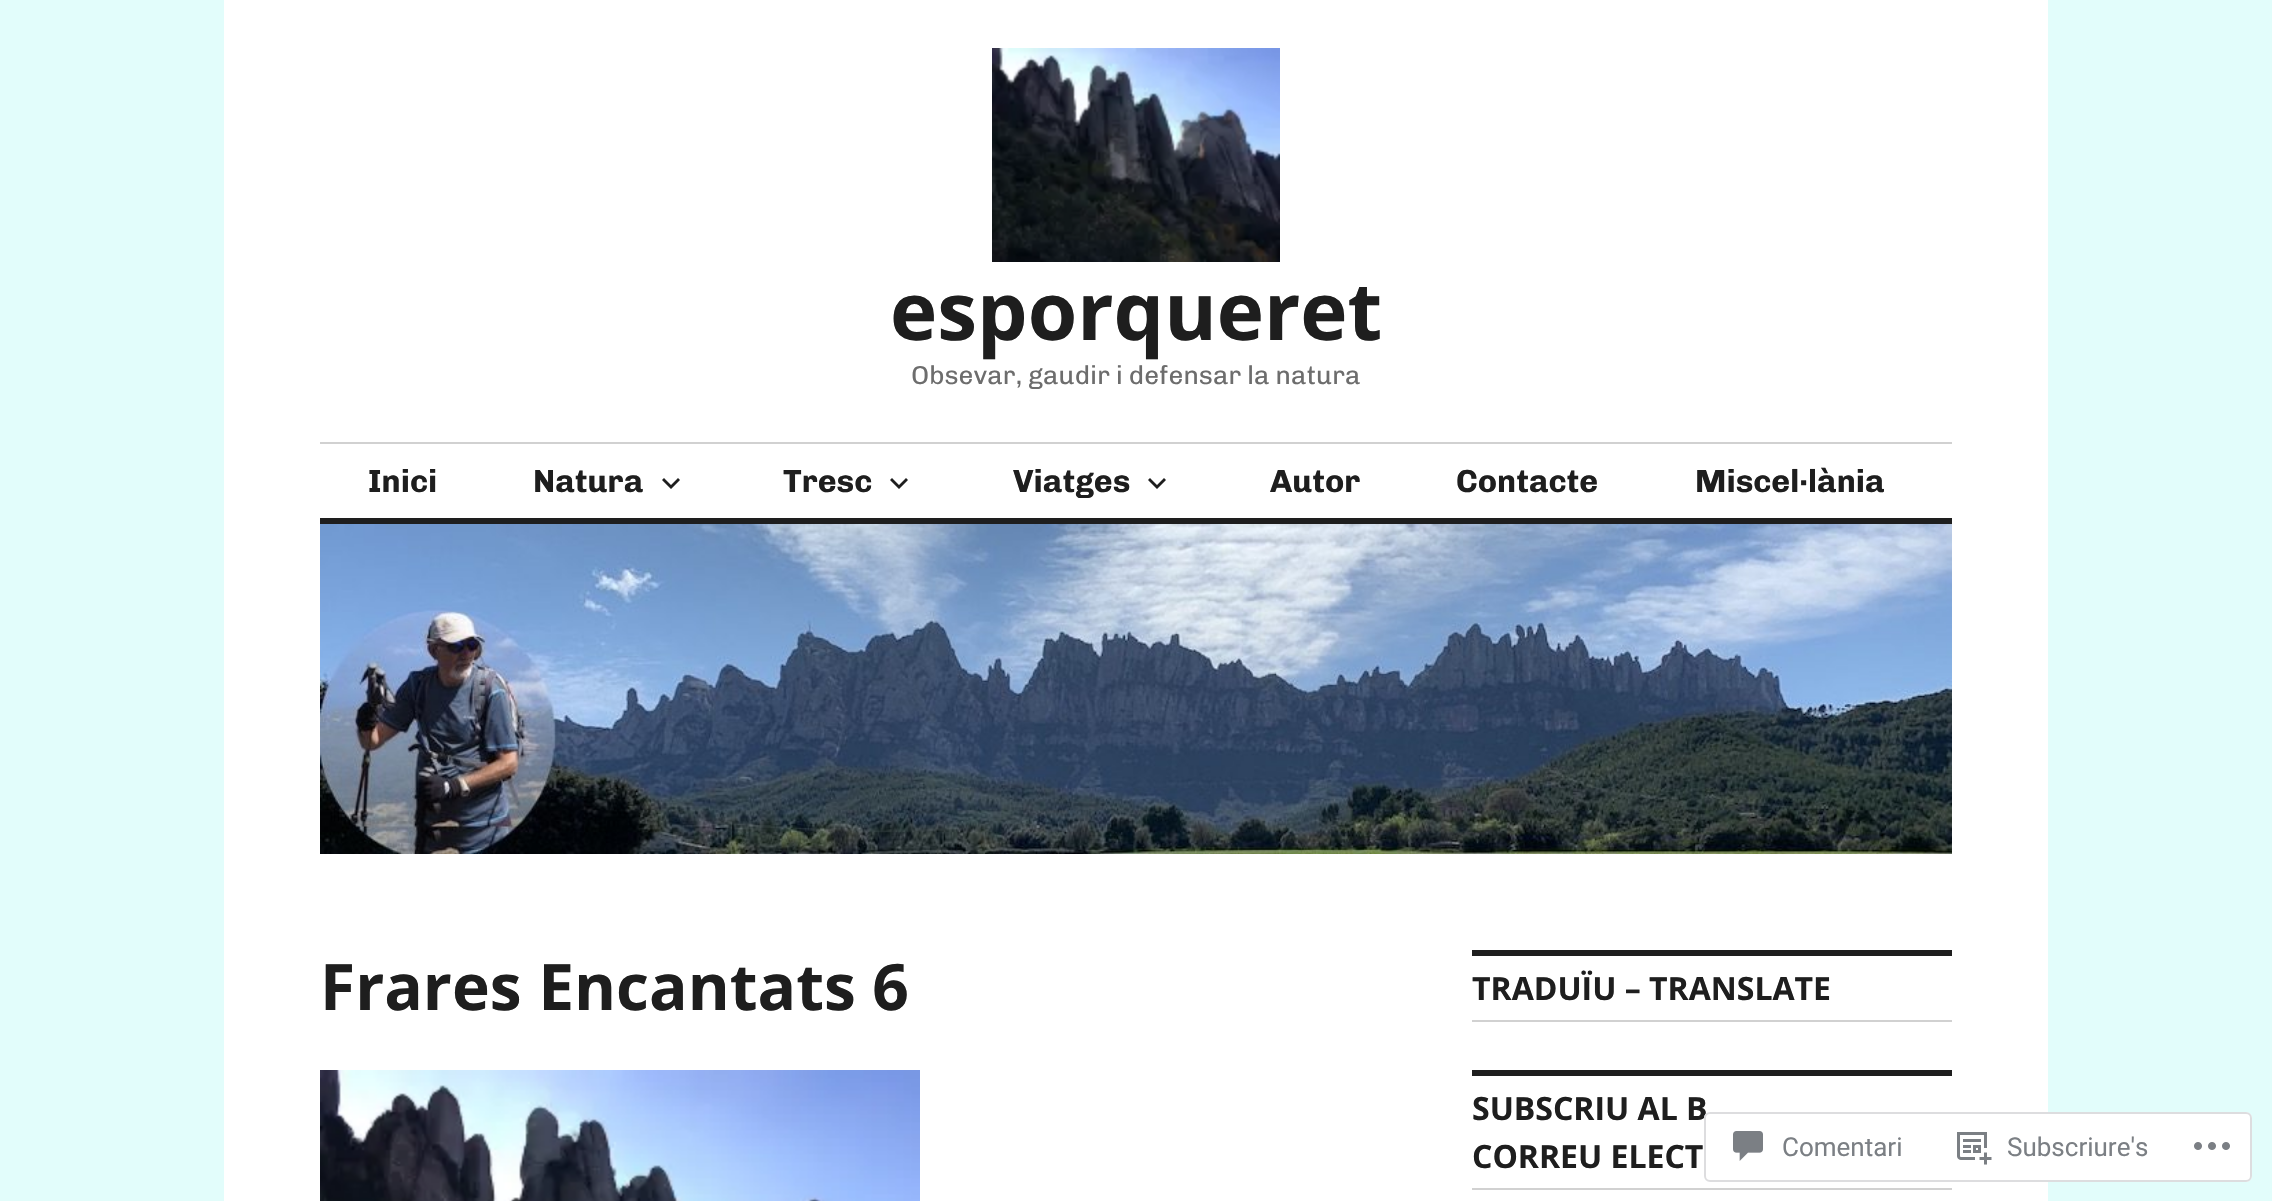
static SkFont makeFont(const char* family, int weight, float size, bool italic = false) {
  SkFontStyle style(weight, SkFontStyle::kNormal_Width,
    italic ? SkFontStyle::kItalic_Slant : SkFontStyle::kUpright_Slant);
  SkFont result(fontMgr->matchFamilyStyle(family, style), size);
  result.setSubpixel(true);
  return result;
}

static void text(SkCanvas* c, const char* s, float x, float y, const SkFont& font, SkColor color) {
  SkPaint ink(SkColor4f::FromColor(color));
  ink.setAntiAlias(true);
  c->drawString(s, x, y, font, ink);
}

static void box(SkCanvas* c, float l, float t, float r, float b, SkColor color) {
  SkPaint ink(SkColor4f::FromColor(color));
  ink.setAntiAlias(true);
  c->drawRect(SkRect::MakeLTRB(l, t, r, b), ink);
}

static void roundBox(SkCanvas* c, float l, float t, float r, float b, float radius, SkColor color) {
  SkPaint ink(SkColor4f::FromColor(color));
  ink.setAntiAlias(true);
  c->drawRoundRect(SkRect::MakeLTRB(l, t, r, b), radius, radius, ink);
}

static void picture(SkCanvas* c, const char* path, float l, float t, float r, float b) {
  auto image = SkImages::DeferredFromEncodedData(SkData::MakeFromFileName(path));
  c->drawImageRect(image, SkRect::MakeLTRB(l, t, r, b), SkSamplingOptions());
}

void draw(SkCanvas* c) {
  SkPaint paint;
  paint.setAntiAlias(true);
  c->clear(0xffe2fdfb);
  box(c, 224, 0, 2048, 1201, 0xffffffff);
  picture(c, "img_01.png", 992, 48, 1280, 262);
  SkFont face1 = makeFont("Open Sans", 700, 80);
  text(c, "esporqueret", 890, 340, face1, 0xff1e1e1e);
  SkFont face2 = makeFont("Chivo", 400, 26);
  text(c, "Obsevar, gaudir i defensar la natura", 911, 384, face2, 0xff6d6d6d);
  box(c, 320, 442, 1952, 444, 0xffd1d1d1);
  box(c, 320, 518, 1952, 524, 0xff1e1e1e);
  SkFont face3 = makeFont("Chivo", 700, 32);
  text(c, "Inici", 368, 492, face3, 0xff1e1e1e);
  text(c, "Natura", 533, 492, face3, 0xff1e1e1e);
  paint.setColor(0xff1e1e1e);
  c->drawPath(SkPathBuilder().moveTo(678, 478).lineTo(680, 480).lineTo(671, 489).lineTo(662, 480).lineTo(664, 478).lineTo(671, 485).close().detach(), paint);
  text(c, "Tresc", 783, 492, face3, 0xff1e1e1e);
  c->drawPath(SkPathBuilder().moveTo(906, 478).lineTo(908, 480).lineTo(899, 489).lineTo(890, 480).lineTo(892, 478).lineTo(899, 485).close().detach(), paint);
  text(c, "Viatges", 1013, 492, face3, 0xff1e1e1e);
  c->drawPath(SkPathBuilder().moveTo(1164, 478).lineTo(1166, 480).lineTo(1157, 489).lineTo(1148, 480).lineTo(1150, 478).lineTo(1157, 485).close().detach(), paint);
  text(c, "Autor", 1270, 492, face3, 0xff1e1e1e);
  text(c, "Contacte", 1456, 492, face3, 0xff1e1e1e);
  text(c, "Miscel·lània", 1695, 492, face3, 0xff1e1e1e);
  picture(c, "img_02.png", 320, 524, 1952, 854);
  SkFont face4 = makeFont("Open Sans", 700, 64);
  text(c, "Frares Encantats 6", 320, 1010, face4, 0xff1e1e1e);
  picture(c, "img_03.png", 320, 1070, 920, 1201);
  box(c, 1472, 950, 1952, 956, 0xff1e1e1e);
  box(c, 1472, 1020, 1952, 1022, 0xffd1d1d1);
  SkFont face5 = makeFont("Open Sans", 700, 32);
  text(c, "TRADUÏU – TRANSLATE", 1472, 1000, face5, 0xff1e1e1e);
  box(c, 1472, 1070, 1952, 1076, 0xff1e1e1e);
  box(c, 1472, 1188, 1952, 1190, 0xffd1d1d1);
  text(c, "SUBSCRIU AL B", 1472, 1120, face5, 0xff1e1e1e);
  text(c, "CORREU ELECT", 1472, 1168, face5, 0xff1e1e1e);
  roundBox(c, 1704, 1112, 2252, 1182, 6, 0xfaffffff);
  paint.setStyle(SkPaint::kStroke_Style);
  paint.setStrokeWidth(2);
  paint.setColor(0xfadcdcde);
  c->drawRoundRect(SkRect::MakeLTRB(1705, 1113, 2251, 1181), 5, 5, paint);
  picture(c, "img_04.png", 1733, 1131, 1763, 1161);
  SkFont face6 = makeFont("Roboto", 400, 26);
  text(c, "Comentari", 1782, 1156, face6, 0xff7b7f84);
  picture(c, "img_05.png", 1957, 1132, 1992, 1165);
  text(c, "Subscriure's", 2007, 1156, face6, 0xff7b7f84);
  picture(c, "img_06.png", 2194, 1142, 2230, 1150);
}
